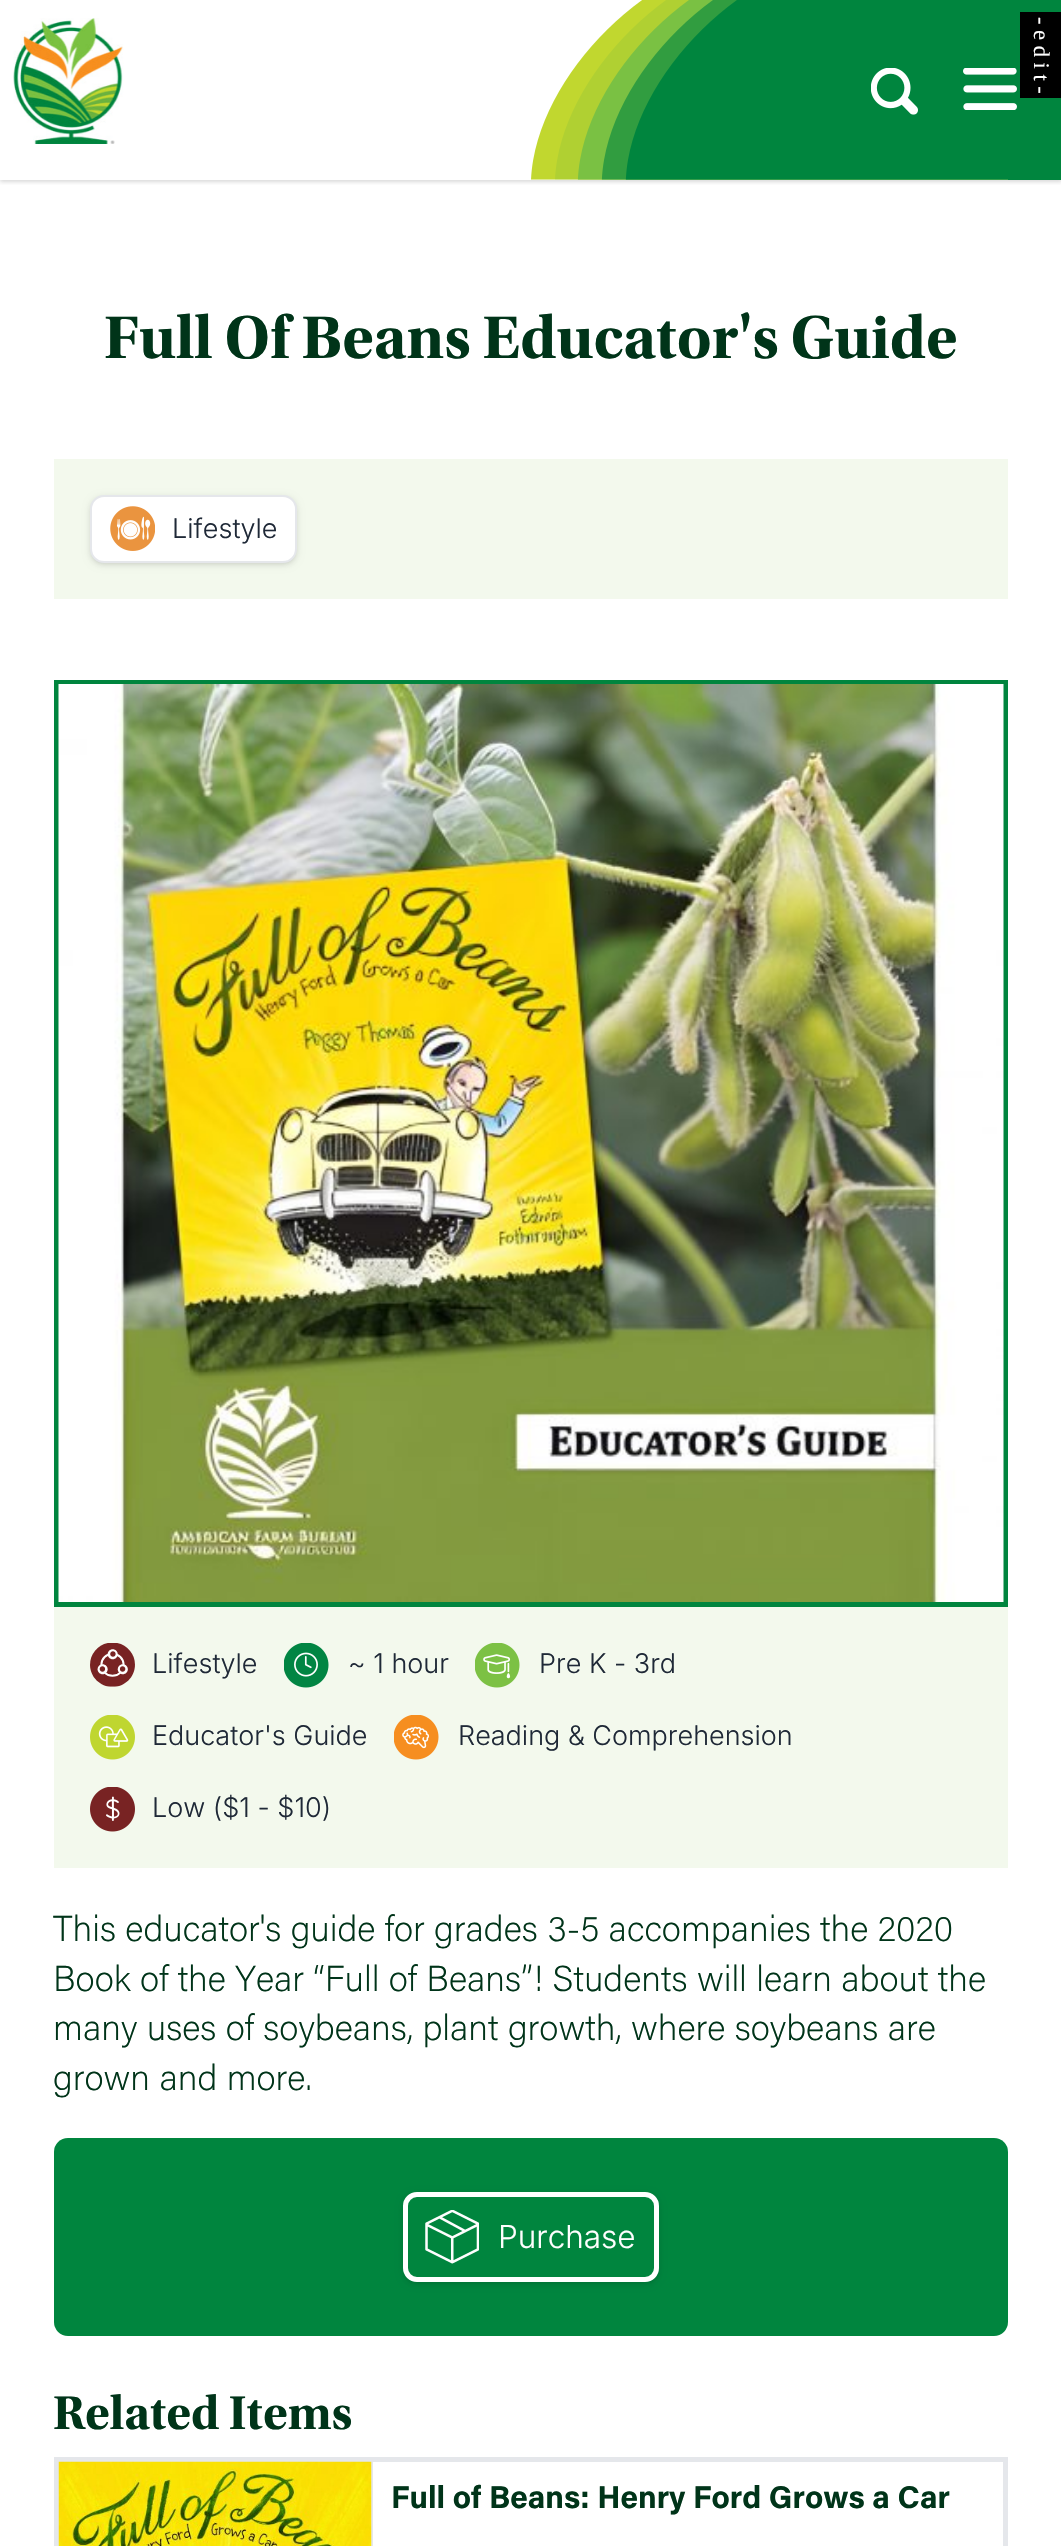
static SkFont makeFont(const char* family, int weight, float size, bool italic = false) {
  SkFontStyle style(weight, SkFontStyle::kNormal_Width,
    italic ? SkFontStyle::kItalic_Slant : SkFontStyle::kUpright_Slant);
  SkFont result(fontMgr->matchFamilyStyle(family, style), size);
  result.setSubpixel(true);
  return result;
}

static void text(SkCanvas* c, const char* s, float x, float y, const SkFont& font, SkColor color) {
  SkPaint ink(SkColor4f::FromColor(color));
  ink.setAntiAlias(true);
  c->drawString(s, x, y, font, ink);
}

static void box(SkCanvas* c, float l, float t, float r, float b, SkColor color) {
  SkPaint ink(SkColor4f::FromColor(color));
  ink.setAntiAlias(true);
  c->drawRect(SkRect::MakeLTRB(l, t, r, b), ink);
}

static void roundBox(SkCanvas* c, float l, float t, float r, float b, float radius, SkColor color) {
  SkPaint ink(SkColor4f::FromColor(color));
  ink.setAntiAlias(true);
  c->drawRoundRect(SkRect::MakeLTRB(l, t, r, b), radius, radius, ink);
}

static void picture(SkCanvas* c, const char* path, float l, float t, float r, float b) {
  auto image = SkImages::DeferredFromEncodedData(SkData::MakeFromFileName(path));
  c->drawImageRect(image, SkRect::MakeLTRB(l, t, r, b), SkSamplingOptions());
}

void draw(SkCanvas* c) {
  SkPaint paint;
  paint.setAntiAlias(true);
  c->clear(0xffffffff);
  c->save();
  c->clipRect(SkRect::MakeLTRB(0, 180, 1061, 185));
  paint.setColor(0x33424242);
  paint.setMaskFilter(SkMaskFilter::MakeBlur(kNormal_SkBlurStyle, 2));
  c->drawRect(SkRect::MakeLTRB(0, 2, 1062, 182), paint);
  paint.setMaskFilter(nullptr);
  c->restore();
  box(c, 1008, 0, 1061, 180, 0xff00853e);
  box(c, 1020, 12, 1061, 98, 0xff000000);
  SkFont face1 = makeFont("Liberation Serif", 400, 22.5f);
  c->save();
  c->rotate(90, 1034, 17);
  text(c, "- e d i t -", 1034, 17, face1, 0xffffffff);
  c->restore();
  picture(c, "img_01.png", 531, 0, 1008, 180);
  picture(c, "img_02.png", 13, 18, 124, 144);
  picture(c, "img_03.png", 871, 68, 918, 115);
  picture(c, "img_04.png", 963, 68, 1017, 110);
  SkFont face2 = makeFont("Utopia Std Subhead", 700, 63);
  text(c, "Full Of Beans Educator's Guide", 104, 358, face2, 0xff003419);
  box(c, 54, 459, 1008, 599, 0xfff3f9ed);
  paint.setColor(0x1a000000);
  paint.setMaskFilter(SkMaskFilter::MakeBlur(kNormal_SkBlurStyle, 2));
  c->drawRoundRect(SkRect::MakeLTRB(92, 500, 295, 563), 11, 11, paint);
  paint.setMaskFilter(nullptr);
  paint.setMaskFilter(SkMaskFilter::MakeBlur(kNormal_SkBlurStyle, 3.5f));
  c->drawRoundRect(SkRect::MakeLTRB(90, 497, 297, 565), 14, 14, paint);
  paint.setMaskFilter(nullptr);
  paint.setColor(0xffffffff);
  c->drawRoundRect(SkRect::MakeLTRB(91, 496, 296, 562), 13, 13, paint);
  paint.setStyle(SkPaint::kStroke_Style);
  paint.setStrokeWidth(2);
  paint.setColor(0xffe5e7eb);
  c->drawRoundRect(SkRect::MakeLTRB(91, 496, 296, 562), 13, 13, paint);
  picture(c, "img_05.png", 110, 506, 155, 551);
  SkFont face3 = makeFont("Inter", 300, 27);
  text(c, "Lifestyle", 172, 538, face3, 0xff1f2937);
  paint.setStrokeWidth(5);
  paint.setColor(0xff00853e);
  c->drawRect(SkRect::MakeLTRB(56.5f, 682.5f, 1005.5f, 1604.5f), paint);
  picture(c, "img_06.png", 58, 684, 1004, 1602);
  box(c, 54, 1607, 1008, 1868, 0xfff3f9ed);
  picture(c, "img_07.png", 90, 1643, 135, 1687);
  text(c, "Lifestyle", 152, 1673, face3, 0xff1f2937);
  picture(c, "img_08.png", 284, 1643, 329, 1688);
  text(c, "~ 1 hour", 348, 1673, face3, 0xff1f2937);
  picture(c, "img_09.png", 475, 1643, 520, 1688);
  text(c, "Pre K - 3rd", 539, 1673, face3, 0xff1f2937);
  picture(c, "img_10.png", 90, 1715, 135, 1760);
  text(c, "Educator's Guide", 152, 1745, face3, 0xff1f2937);
  picture(c, "img_11.png", 394, 1715, 439, 1760);
  text(c, "Reading & Comprehension", 458, 1745, face3, 0xff1f2937);
  picture(c, "img_12.png", 90, 1787, 135, 1832);
  text(c, "Low ($1 - $10)", 152, 1817, face3, 0xff1f2937);
  SkFont face4 = makeFont("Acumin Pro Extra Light", 200, 36);
  text(c, "This educator's guide for grades 3-5 accompanies the 2020", 53, 1941, face4, 0xff003419);
  text(c, "Book of the Year “Full of Beans”! Students will learn about the", 53, 1991, face4, 0xff003419);
  text(c, "many uses of soybeans, plant growth, where soybeans are", 53, 2040, face4, 0xff003419);
  text(c, "grown and more.", 53, 2090, face4, 0xff003419);
  roundBox(c, 54, 2138, 1008, 2336, 14, 0xff00853e);
  paint.setStyle(SkPaint::kFill_Style);
  paint.setColor(0x1a000000);
  paint.setMaskFilter(SkMaskFilter::MakeBlur(kNormal_SkBlurStyle, 2));
  c->drawRoundRect(SkRect::MakeLTRB(405, 2196, 657, 2282), 11, 11, paint);
  paint.setMaskFilter(nullptr);
  paint.setMaskFilter(SkMaskFilter::MakeBlur(kNormal_SkBlurStyle, 3.5f));
  c->drawRoundRect(SkRect::MakeLTRB(403, 2194, 659, 2284), 14, 14, paint);
  paint.setMaskFilter(nullptr);
  paint.setColor(0xff00853e);
  c->drawRoundRect(SkRect::MakeLTRB(405.5f, 2194.5f, 656.5f, 2279.5f), 11.5f, 11.5f, paint);
  paint.setStyle(SkPaint::kStroke_Style);
  paint.setColor(0xffffffff);
  c->drawRoundRect(SkRect::MakeLTRB(405.5f, 2194.5f, 656.5f, 2279.5f), 11.5f, 11.5f, paint);
  picture(c, "img_13.png", 425, 2210, 479, 2264);
  SkFont face5 = makeFont("Inter", 300, 31.5f);
  text(c, "Purchase", 498, 2248, face5, 0xffffffff);
  SkFont face6 = makeFont("Utopia Std Subhead", 700, 49.5f);
  text(c, "Related Items", 53, 2429, face6, 0xff003419);
  paint.setColor(0xffe5e7eb);
  c->drawRect(SkRect::MakeLTRB(56.5f, 2459.5f, 1005.5f, 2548.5f), paint);
  box(c, 371, 2462, 373, 2546, 0xffe5e7eb);
  picture(c, "img_14.png", 58, 2461, 372, 2546);
  SkFont face7 = makeFont("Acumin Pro", 700, 31.5f);
  text(c, "Full of Beans: Henry Ford Grows a Car", 391, 2508, face7, 0xff003419);
}
